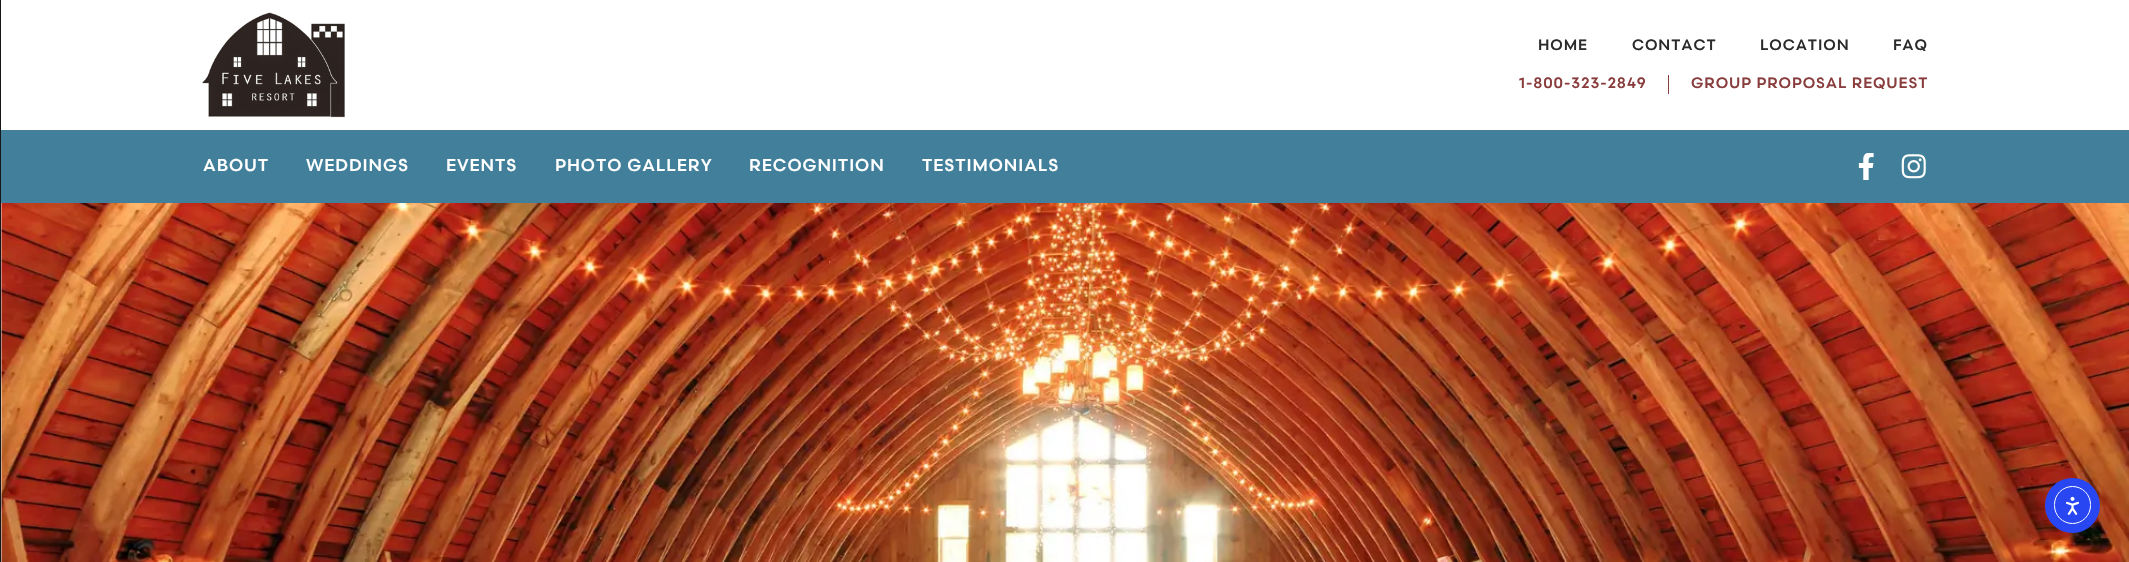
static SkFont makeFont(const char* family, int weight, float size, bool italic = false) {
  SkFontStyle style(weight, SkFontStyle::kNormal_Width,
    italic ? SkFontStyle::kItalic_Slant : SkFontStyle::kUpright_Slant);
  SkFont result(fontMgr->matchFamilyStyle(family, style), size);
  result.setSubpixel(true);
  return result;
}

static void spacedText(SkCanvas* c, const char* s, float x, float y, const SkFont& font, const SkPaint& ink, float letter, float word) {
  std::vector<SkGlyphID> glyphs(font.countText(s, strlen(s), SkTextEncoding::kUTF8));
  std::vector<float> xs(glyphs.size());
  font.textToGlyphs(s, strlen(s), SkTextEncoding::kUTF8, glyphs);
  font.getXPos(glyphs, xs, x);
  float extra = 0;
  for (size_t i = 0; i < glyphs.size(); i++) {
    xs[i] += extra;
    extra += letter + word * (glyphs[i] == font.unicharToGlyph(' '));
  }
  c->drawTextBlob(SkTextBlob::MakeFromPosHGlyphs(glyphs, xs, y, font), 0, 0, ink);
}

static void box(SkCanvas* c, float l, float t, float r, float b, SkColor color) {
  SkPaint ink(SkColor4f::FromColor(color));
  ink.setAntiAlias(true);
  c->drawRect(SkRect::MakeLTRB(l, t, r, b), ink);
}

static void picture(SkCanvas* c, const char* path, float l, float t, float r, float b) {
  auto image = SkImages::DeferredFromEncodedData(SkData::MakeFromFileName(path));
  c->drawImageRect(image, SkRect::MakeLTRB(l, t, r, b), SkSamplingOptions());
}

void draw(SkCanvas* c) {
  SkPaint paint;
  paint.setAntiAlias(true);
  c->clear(0xff141617);
  box(c, 1, 0, 2129, 562, 0xffffffff);
  picture(c, "img_01.png", 202, 12, 345, 118);
  SkFont face1 = makeFont("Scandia", 500, 15);
  paint.setColor(0xff2b2b2b);
  spacedText(c, "HOME", 1538, 50, face1, paint, 0.9f, 0);
  spacedText(c, "CONTACT", 1632, 50, face1, paint, 0.9f, 0);
  spacedText(c, "LOCATION", 1760, 50, face1, paint, 0.9f, 0);
  spacedText(c, "FAQ", 1893, 50, face1, paint, 0.9f, 0);
  paint.setColor(0xff893c3c);
  spacedText(c, "1-800-323-2849", 1519, 88, face1, paint, 0.9f, 0);
  box(c, 1668, 75, 1669, 94, 0xff893c3c);
  spacedText(c, "GROUP PROPOSAL REQUEST", 1691, 88, face1, paint, 0.9f, 0);
  box(c, 1, 130, 2129, 203, 0xff417f9b);
  SkFont face2 = makeFont("Scandia", 500, 17);
  paint.setColor(0xffffffff);
  spacedText(c, "ABOUT", 203, 171, face2, paint, 0.9f, 0);
  spacedText(c, "WEDDINGS", 306, 171, face2, paint, 0.9f, 0);
  spacedText(c, "EVENTS", 446, 171, face2, paint, 0.9f, 0);
  spacedText(c, "PHOTO GALLERY", 555, 171, face2, paint, 0.9f, 0);
  spacedText(c, "RECOGNITION", 749, 171, face2, paint, 0.9f, 0);
  spacedText(c, "TESTIMONIALS", 922, 171, face2, paint, 0.9f, 0);
  picture(c, "img_02.png", 1858, 153, 1874, 180);
  picture(c, "img_03.png", 1901, 154, 1926, 179);
  picture(c, "img_04.png", 1, 203, 2129, 562);
  paint.setColor(0xff2847f3);
  c->drawCircle(2072.5f, 505.5f, 27.5f, paint);
  paint.setStyle(SkPaint::kStroke_Style);
  paint.setStrokeWidth(1);
  paint.setColor(0xffffffff);
  c->drawRoundRect(SkRect::MakeLTRB(2054.5f, 486.5f, 2090.5f, 523.5f), 18, 18, paint);
  picture(c, "img_05.png", 2066, 496, 2079, 515);
}
